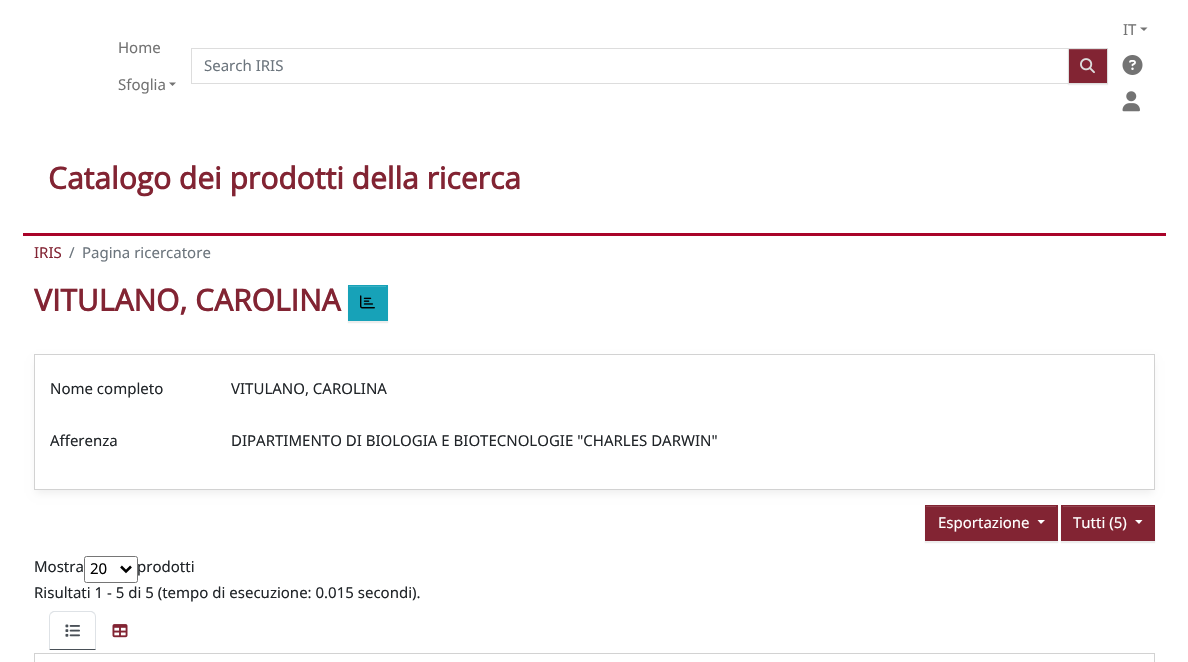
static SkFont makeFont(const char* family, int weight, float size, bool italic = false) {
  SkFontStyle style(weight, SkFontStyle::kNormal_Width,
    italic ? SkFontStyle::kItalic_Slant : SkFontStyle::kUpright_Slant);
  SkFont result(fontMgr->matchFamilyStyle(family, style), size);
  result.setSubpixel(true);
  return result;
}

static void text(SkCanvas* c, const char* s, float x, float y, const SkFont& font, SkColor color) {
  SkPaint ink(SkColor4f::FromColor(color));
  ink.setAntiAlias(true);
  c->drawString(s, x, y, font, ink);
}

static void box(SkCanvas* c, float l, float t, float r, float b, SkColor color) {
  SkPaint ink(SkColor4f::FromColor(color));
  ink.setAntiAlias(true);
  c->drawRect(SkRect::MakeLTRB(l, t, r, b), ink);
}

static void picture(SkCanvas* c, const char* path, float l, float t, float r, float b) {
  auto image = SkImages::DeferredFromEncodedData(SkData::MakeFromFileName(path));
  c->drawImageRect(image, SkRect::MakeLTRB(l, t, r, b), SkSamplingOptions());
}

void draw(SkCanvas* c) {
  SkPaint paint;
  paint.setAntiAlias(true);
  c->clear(0xffffffff);
  SkFont face1 = makeFont("Noto Sans", 400, 15);
  text(c, "IT", 1123, 35, face1, 0xff737373);
  paint.setColor(0xff737373);
  c->drawPath(SkPathBuilder().moveTo(1140, 27.5f).lineTo(1147.5f, 27.5f).lineTo(1144, 31).close().detach(), paint);
  picture(c, "img_01.png", 1122, 55, 1143, 75);
  picture(c, "img_02.png", 1122, 91, 1140, 112);
  text(c, "Home", 118, 53, face1, 0xff737373);
  text(c, "Sfoglia", 118, 90, face1, 0xff737373);
  c->drawPath(SkPathBuilder().moveTo(169, 82.5f).lineTo(176, 82.5f).lineTo(172.5f, 86).close().detach(), paint);
  paint.setStyle(SkPaint::kStroke_Style);
  paint.setStrokeWidth(1);
  paint.setColor(0xffdddddd);
  c->drawRect(SkRect::MakeLTRB(191.5f, 48.5f, 1068.5f, 83.5f), paint);
  text(c, "Search IRIS", 204, 71, face1, 0xff6c757d);
  paint.setStyle(SkPaint::kFill_Style);
  paint.setColor(0x12000000);
  paint.setMaskFilter(SkMaskFilter::MakeBlur(kNormal_SkBlurStyle, 0.5f));
  c->drawRect(SkRect::MakeLTRB(1068, 49, 1108, 85), paint);
  paint.setMaskFilter(nullptr);
  box(c, 1069, 49, 1107, 83, 0xff822433);
  box(c, 1069, 49, 1106, 50, 0xff954552);
  paint.setStyle(SkPaint::kStroke_Style);
  paint.setColor(0xffdddddd);
  c->drawRect(SkRect::MakeLTRB(1068.5f, 48.5f, 1107.5f, 83.5f), paint);
  picture(c, "img_03.png", 1080, 58, 1095, 74);
  box(c, 23, 233, 1166, 236, 0xffa90329);
  SkFont face2 = makeFont("Open Sans", 700, 30);
  text(c, "Catalogo dei prodotti della ricerca", 48, 189, face2, 0xff822433);
  text(c, "IRIS", 34, 258, face1, 0xff822433);
  text(c, "/", 69, 258, face1, 0xff6c757d);
  text(c, "Pagina ricercatore", 82, 258, face1, 0xff6c757d);
  text(c, "VITULANO, CAROLINA", 34, 311, face2, 0xff822433);
  paint.setStyle(SkPaint::kFill_Style);
  paint.setColor(0x12000000);
  paint.setMaskFilter(SkMaskFilter::MakeBlur(kNormal_SkBlurStyle, 0.5f));
  c->drawRect(SkRect::MakeLTRB(348, 286, 388, 323), paint);
  paint.setMaskFilter(nullptr);
  box(c, 348, 285, 388, 321, 0xff17a2b8);
  box(c, 349, 286, 386, 287, 0xff3ab0c3);
  picture(c, "img_04.png", 360, 295, 375, 309);
  c->save();
  c->clipPath(SkPathBuilder(SkPathFillType::kEvenOdd).moveTo(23, 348).lineTo(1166, 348).lineTo(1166, 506).lineTo(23, 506).close().moveTo(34, 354).lineTo(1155, 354).lineTo(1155, 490).lineTo(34, 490).close().detach(), true);
  paint.setColor(0xffeeeeee);
  paint.setMaskFilter(SkMaskFilter::MakeBlur(kNormal_SkBlurStyle, 4));
  c->drawRect(SkRect::MakeLTRB(36, 361, 1153, 493), paint);
  paint.setMaskFilter(nullptr);
  c->restore();
  paint.setStyle(SkPaint::kStroke_Style);
  paint.setColor(0xffd2d2d2);
  c->drawRect(SkRect::MakeLTRB(34.5f, 354.5f, 1154.5f, 489.5f), paint);
  text(c, "Nome completo", 50, 394, face1, 0xff212529);
  text(c, "VITULANO, CAROLINA", 231, 394, face1, 0xff212529);
  text(c, "Afferenza", 50, 446, face1, 0xff212529);
  text(c, "DIPARTIMENTO DI BIOLOGIA E BIOTECNOLOGIE \"CHARLES DARWIN\"", 231, 446, face1, 0xff212529);
  paint.setStyle(SkPaint::kFill_Style);
  paint.setColor(0x12000000);
  paint.setMaskFilter(SkMaskFilter::MakeBlur(kNormal_SkBlurStyle, 0.5f));
  c->drawRect(SkRect::MakeLTRB(925, 506, 1058, 543), paint);
  paint.setMaskFilter(nullptr);
  box(c, 925, 505, 1058, 541, 0xff822433);
  box(c, 926, 506, 1056, 507, 0xff954552);
  text(c, "Esportazione", 938, 528, face1, 0xffffffff);
  paint.setColor(0xffffffff);
  c->drawPath(SkPathBuilder().moveTo(1037.5f, 520).lineTo(1045, 520).lineTo(1041, 524).close().detach(), paint);
  paint.setColor(0x12000000);
  paint.setMaskFilter(SkMaskFilter::MakeBlur(kNormal_SkBlurStyle, 0.5f));
  c->drawRect(SkRect::MakeLTRB(1061, 506, 1155, 543), paint);
  paint.setMaskFilter(nullptr);
  box(c, 1061, 505, 1155, 541, 0xff822433);
  box(c, 1063, 506, 1154, 507, 0xff954552);
  text(c, "Tutti (5)", 1073, 528, face1, 0xffffffff);
  paint.setColor(0xffffffff);
  c->drawPath(SkPathBuilder().moveTo(1135, 520).lineTo(1142.5f, 520).lineTo(1139, 524).close().detach(), paint);
  text(c, "Mostra", 34, 572, face1, 0xff212529);
  paint.setStyle(SkPaint::kStroke_Style);
  paint.setColor(0xff767676);
  c->drawRoundRect(SkRect::MakeLTRB(84.5f, 556.5f, 137.5f, 582.5f), 2, 2, paint);
  paint.setStrokeWidth(2.5f);
  paint.setColor(0xff000000);
  c->drawPath(SkPathBuilder().moveTo(121, 566.5f).lineTo(126, 571.5f).lineTo(131, 566.5f).detach(), paint);
  text(c, "20", 90, 574, face1, 0xff000000);
  text(c, "prodotti", 137, 572, face1, 0xff212529);
  text(c, "Risultati 1 - 5 di 5 (tempo di esecuzione: 0.015 secondi).", 34, 598, face1, 0xff212529);
  paint.setStyle(SkPaint::kFill_Style);
  paint.setColor(0xffdee2e6);
  c->drawPath(SkPathBuilder().moveTo(54, 612).cubicTo(53, 612, 52, 613, 51, 614).lineTo(50, 613).lineTo(53, 611).lineTo(92, 611).lineTo(95, 613).lineTo(94, 614).cubicTo(93, 613, 92, 612, 91, 612).close().detach(), paint);
  c->drawPath(SkPathBuilder().moveTo(94.5f, 613).cubicTo(95.5f, 614, 96, 615.5f, 96, 617).lineTo(96, 650).lineTo(95, 649).lineTo(95, 617).cubicTo(95, 615.5f, 94.5f, 614.5f, 94, 613.5f).close().detach(), paint);
  paint.setColor(0xff495057);
  c->drawPath(SkPathBuilder().moveTo(49, 650).lineTo(96, 650).lineTo(95, 649).lineTo(50, 649).close().detach(), paint);
  paint.setColor(0xffdee2e6);
  c->drawPath(SkPathBuilder().moveTo(49, 650).lineTo(49, 617).cubicTo(49, 615.5f, 49.5f, 614, 50.5f, 613).lineTo(51, 613.5f).cubicTo(50.5f, 614.5f, 50, 615.5f, 50, 617).lineTo(50, 649).close().detach(), paint);
  picture(c, "img_05.png", 65, 624, 80, 637);
  picture(c, "img_06.png", 112, 624, 128, 638);
  paint.setStyle(SkPaint::kStroke_Style);
  paint.setStrokeWidth(1);
  paint.setColor(0xffd2d2d2);
  c->drawRect(SkRect::MakeLTRB(34.5f, 653.5f, 1154.5f, 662.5f), paint);
}
